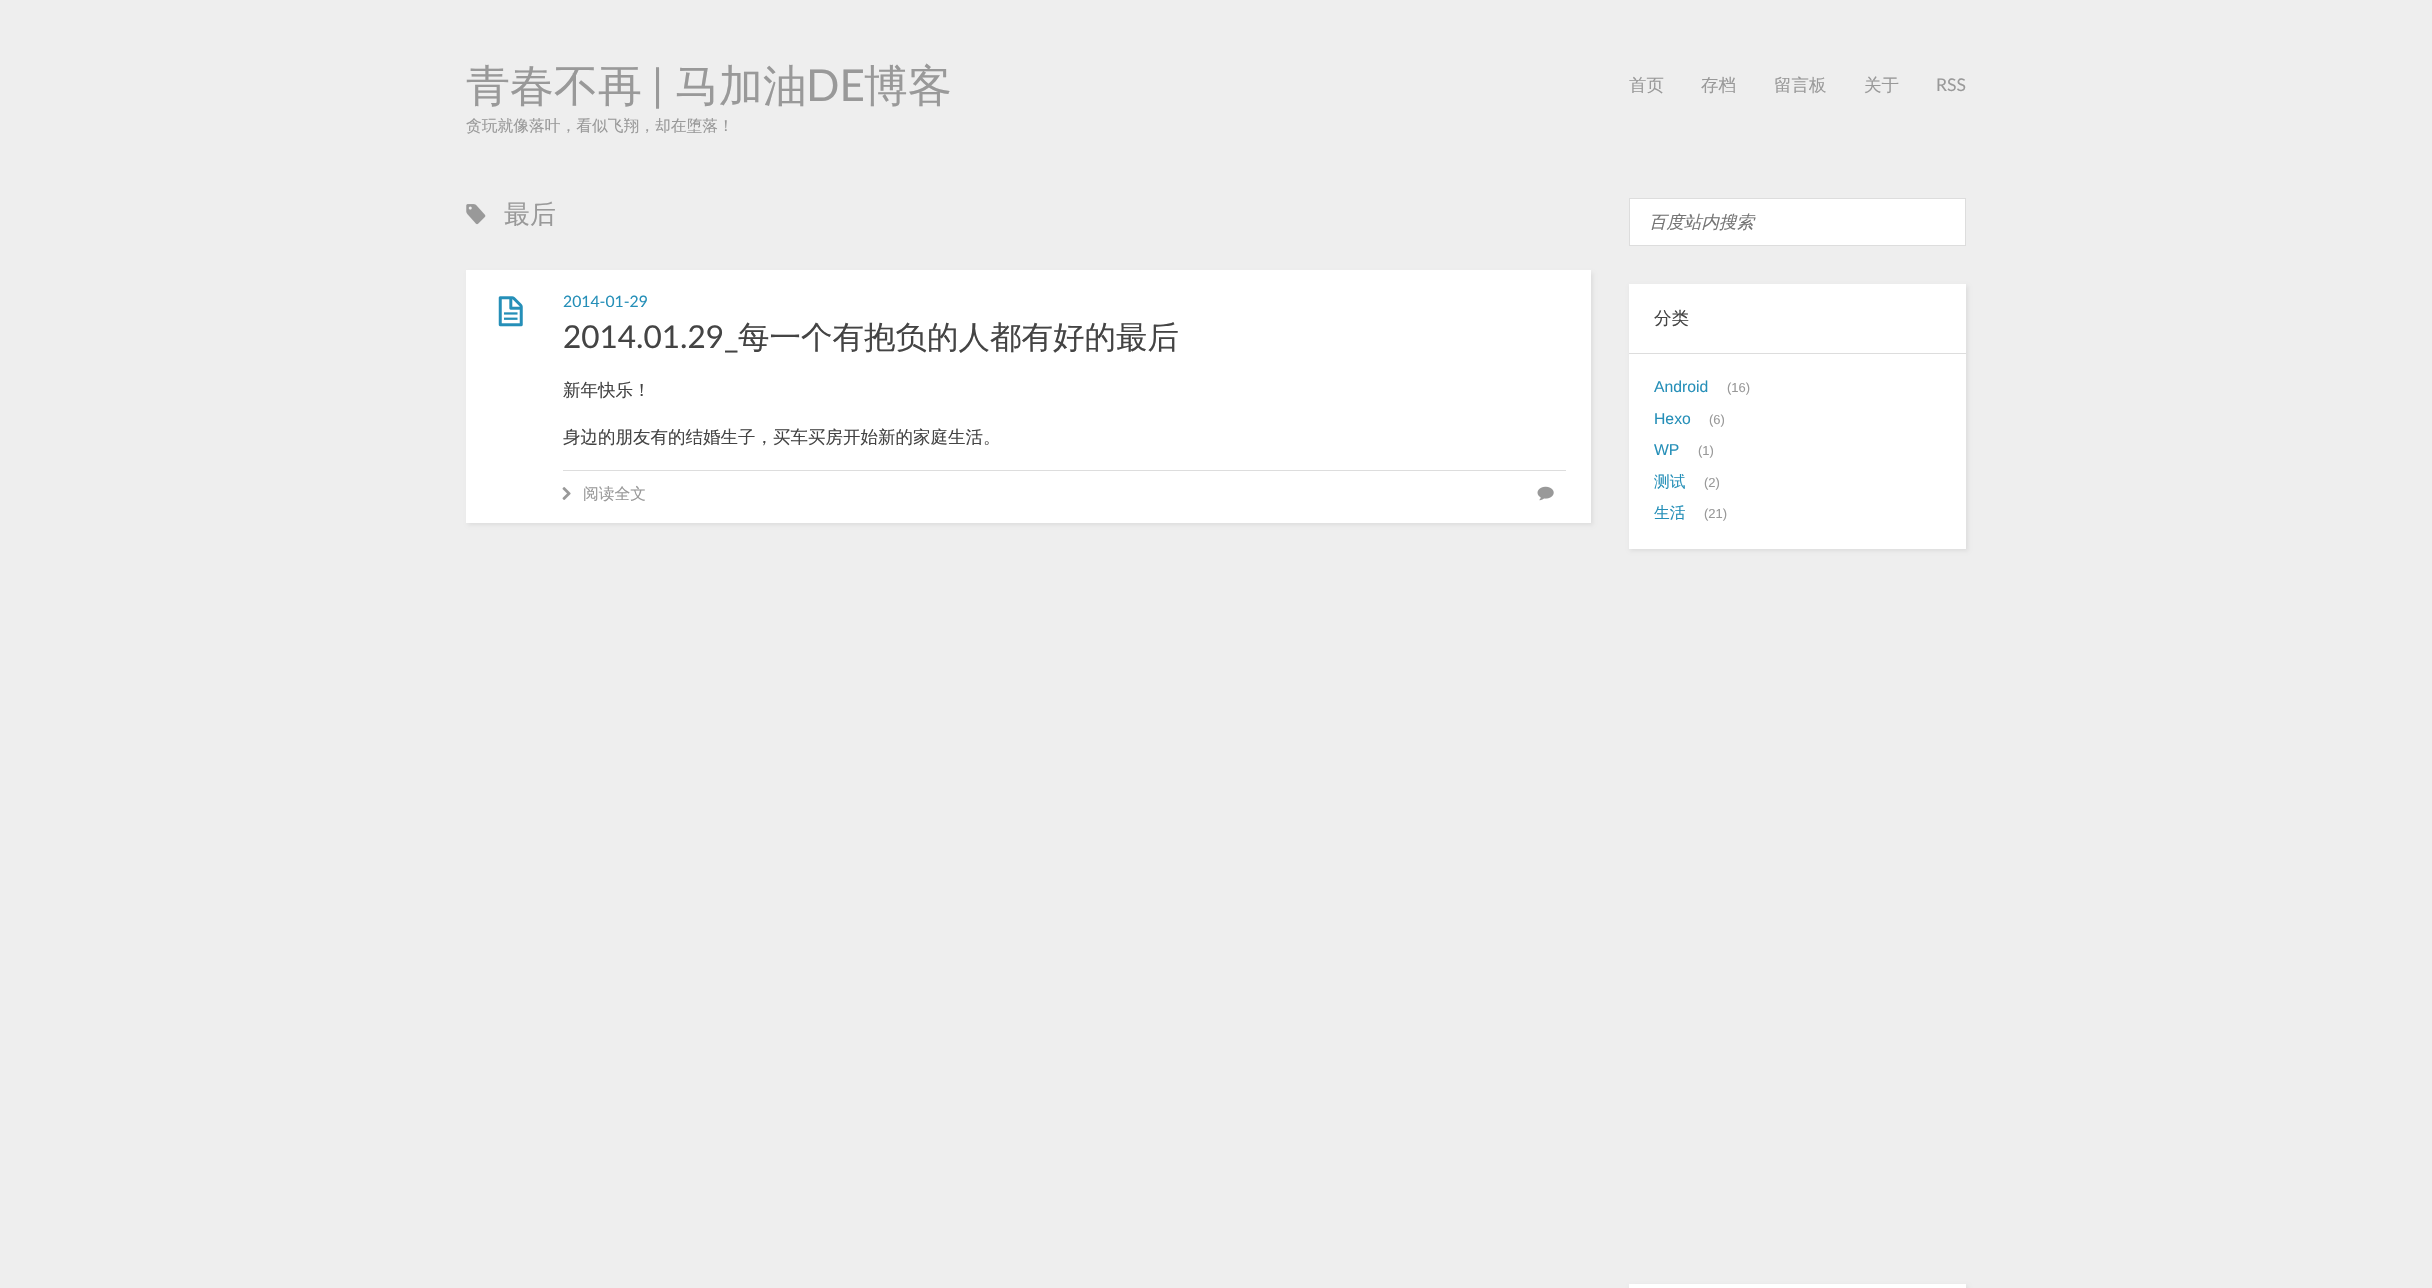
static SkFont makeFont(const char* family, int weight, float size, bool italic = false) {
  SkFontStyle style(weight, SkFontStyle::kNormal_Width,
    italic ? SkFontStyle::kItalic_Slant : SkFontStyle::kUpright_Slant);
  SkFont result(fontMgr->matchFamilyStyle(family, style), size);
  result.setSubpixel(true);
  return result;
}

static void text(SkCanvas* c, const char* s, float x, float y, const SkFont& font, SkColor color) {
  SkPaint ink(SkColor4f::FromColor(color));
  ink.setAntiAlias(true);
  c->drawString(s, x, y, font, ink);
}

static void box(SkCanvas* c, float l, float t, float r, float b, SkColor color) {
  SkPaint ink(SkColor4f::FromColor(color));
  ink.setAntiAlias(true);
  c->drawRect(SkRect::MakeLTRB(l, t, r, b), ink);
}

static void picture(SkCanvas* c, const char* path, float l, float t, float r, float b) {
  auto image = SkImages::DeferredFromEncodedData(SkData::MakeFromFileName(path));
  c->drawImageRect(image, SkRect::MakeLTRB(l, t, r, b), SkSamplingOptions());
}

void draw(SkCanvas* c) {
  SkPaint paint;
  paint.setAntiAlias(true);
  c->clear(0xffeeeeee);
  SkFont face1 = makeFont("WenQuanYi Zen Hei", 500, 44);
  text(c, "青春不再", 466, 101, face1, 0xff999999);
  SkFont face2 = makeFont("Lato", 400, 44);
  text(c, "|", 652, 101, face2, 0xff999999);
  text(c, "马加油", 675, 101, face1, 0xff999999);
  text(c, "DE", 806, 101, face2, 0xff999999);
  text(c, "博客", 864, 101, face1, 0xff999999);
  SkFont face3 = makeFont("WenQuanYi Zen Hei", 500, 15.75f);
  text(c, "贪玩就像落叶，看似飞翔，却在堕落！", 466, 131, face3, 0xff999999);
  SkFont face4 = makeFont("WenQuanYi Zen Hei", 500, 17.5f);
  text(c, "首页", 1629, 91, face4, 0xff999999);
  text(c, "存档", 1701, 91, face4, 0xff999999);
  text(c, "留言板", 1774, 91, face4, 0xff999999);
  text(c, "关于", 1864, 91, face4, 0xff999999);
  SkFont face5 = makeFont("Lato", 400, 17.5f);
  text(c, "RSS", 1936, 91, face5, 0xff999999);
  picture(c, "img_01.png", 466, 204, 486, 225);
  SkFont face6 = makeFont("WenQuanYi Zen Hei", 500, 26);
  text(c, "最后", 504, 223, face6, 0xff999999);
  paint.setColor(0xffdddddd);
  paint.setMaskFilter(SkMaskFilter::MakeBlur(kNormal_SkBlurStyle, 2));
  c->drawRect(SkRect::MakeLTRB(468, 273, 1593, 525), paint);
  paint.setMaskFilter(nullptr);
  box(c, 466, 270, 1591, 523, 0xffffffff);
  picture(c, "img_02.png", 498, 296, 523, 327);
  SkFont face7 = makeFont("Lato", 400, 15.75f);
  text(c, "2014-01-29", 563, 307, face7, 0xff258fb8);
  SkFont face8 = makeFont("Lato", 400, 31.5f);
  text(c, "2014.01.29_", 563, 348, face8, 0xff444444);
  SkFont face9 = makeFont("WenQuanYi Zen Hei", 500, 31.5f);
  text(c, "每一个有抱负的人都有好的最后", 738, 348, face9, 0xff444444);
  text(c, "新年快乐！", 563, 396, face4, 0xff444444);
  text(c, "身边的朋友有的结婚生子，买车买房开始新的家庭生活。", 563, 443, face4, 0xff444444);
  box(c, 563, 470, 1566, 471, 0xffdddddd);
  picture(c, "img_03.png", 562, 487, 571, 500);
  text(c, "阅读全文", 583, 499, face3, 0xff999999);
  picture(c, "img_04.png", 1537, 486, 1554, 501);
  paint.setColor(0xffffffff);
  c->drawRect(SkRect::MakeLTRB(1629.5f, 198.5f, 1965.5f, 245.5f), paint);
  paint.setStyle(SkPaint::kStroke_Style);
  paint.setStrokeWidth(1);
  paint.setColor(0xffdddddd);
  c->drawRect(SkRect::MakeLTRB(1629.5f, 198.5f, 1965.5f, 245.5f), paint);
  SkFont face10 = makeFont("WenQuanYi Zen Hei", 500, 17.5f, true);
  text(c, "百度站内搜索", 1649, 228, face10, 0xff757575);
  paint.setStyle(SkPaint::kFill_Style);
  paint.setMaskFilter(SkMaskFilter::MakeBlur(kNormal_SkBlurStyle, 2));
  c->drawRect(SkRect::MakeLTRB(1630, 286, 1968, 551), paint);
  paint.setMaskFilter(nullptr);
  box(c, 1629, 284, 1966, 549, 0xffffffff);
  box(c, 1629, 353, 1966, 354, 0xffdddddd);
  text(c, "分类", 1654, 324, face4, 0xff444444);
  SkFont face11 = makeFont("Liberation Sans", 400, 15.75f);
  text(c, "Android", 1654, 392, face11, 0xff258fb8);
  SkFont face12 = makeFont("Liberation Sans", 400, 13);
  text(c, "(16)", 1727, 392, face12, 0xff999999);
  text(c, "Hexo", 1654, 424, face11, 0xff258fb8);
  text(c, "(6)", 1709, 424, face12, 0xff999999);
  text(c, "WP", 1654, 455, face11, 0xff258fb8);
  text(c, "(1)", 1698, 455, face12, 0xff999999);
  text(c, "测试", 1654, 487, face3, 0xff258fb8);
  text(c, "(2)", 1704, 487, face12, 0xff999999);
  text(c, "生活", 1654, 518, face3, 0xff258fb8);
  text(c, "(21)", 1704, 518, face12, 0xff999999);
  paint.setMaskFilter(SkMaskFilter::MakeBlur(kNormal_SkBlurStyle, 2));
  c->drawRect(SkRect::MakeLTRB(1630, 1286, 1968, 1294), paint);
  paint.setMaskFilter(nullptr);
  box(c, 1629, 1284, 1966, 1288, 0xffffffff);
}
